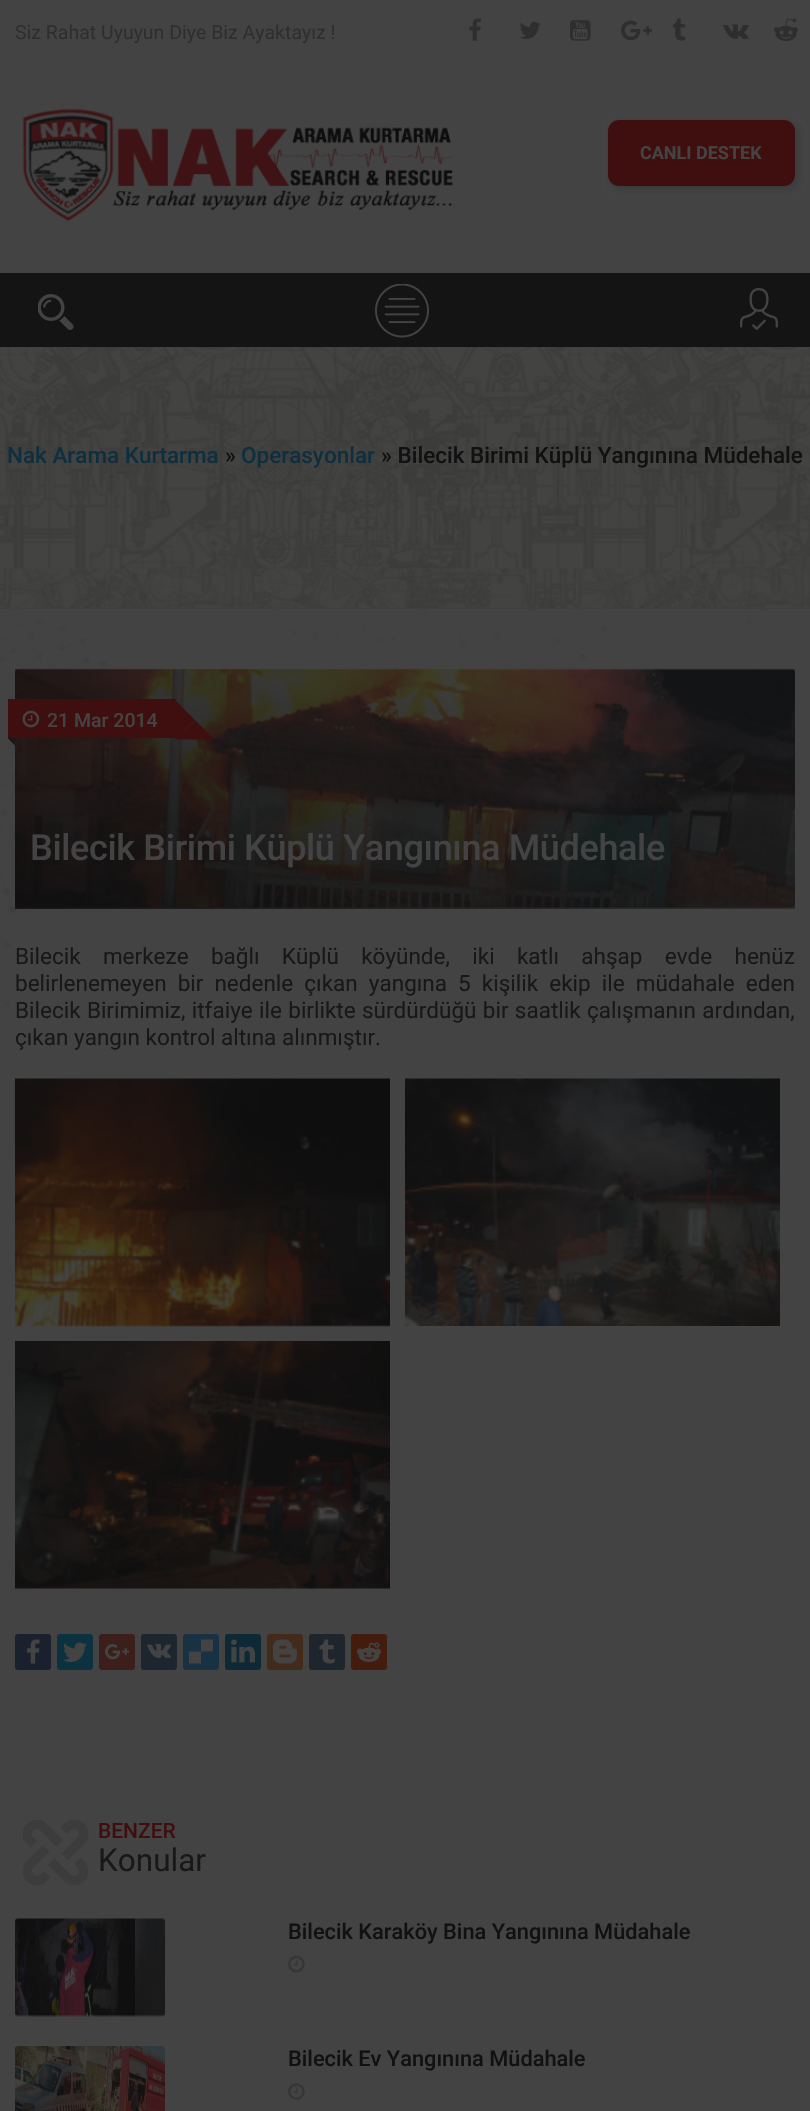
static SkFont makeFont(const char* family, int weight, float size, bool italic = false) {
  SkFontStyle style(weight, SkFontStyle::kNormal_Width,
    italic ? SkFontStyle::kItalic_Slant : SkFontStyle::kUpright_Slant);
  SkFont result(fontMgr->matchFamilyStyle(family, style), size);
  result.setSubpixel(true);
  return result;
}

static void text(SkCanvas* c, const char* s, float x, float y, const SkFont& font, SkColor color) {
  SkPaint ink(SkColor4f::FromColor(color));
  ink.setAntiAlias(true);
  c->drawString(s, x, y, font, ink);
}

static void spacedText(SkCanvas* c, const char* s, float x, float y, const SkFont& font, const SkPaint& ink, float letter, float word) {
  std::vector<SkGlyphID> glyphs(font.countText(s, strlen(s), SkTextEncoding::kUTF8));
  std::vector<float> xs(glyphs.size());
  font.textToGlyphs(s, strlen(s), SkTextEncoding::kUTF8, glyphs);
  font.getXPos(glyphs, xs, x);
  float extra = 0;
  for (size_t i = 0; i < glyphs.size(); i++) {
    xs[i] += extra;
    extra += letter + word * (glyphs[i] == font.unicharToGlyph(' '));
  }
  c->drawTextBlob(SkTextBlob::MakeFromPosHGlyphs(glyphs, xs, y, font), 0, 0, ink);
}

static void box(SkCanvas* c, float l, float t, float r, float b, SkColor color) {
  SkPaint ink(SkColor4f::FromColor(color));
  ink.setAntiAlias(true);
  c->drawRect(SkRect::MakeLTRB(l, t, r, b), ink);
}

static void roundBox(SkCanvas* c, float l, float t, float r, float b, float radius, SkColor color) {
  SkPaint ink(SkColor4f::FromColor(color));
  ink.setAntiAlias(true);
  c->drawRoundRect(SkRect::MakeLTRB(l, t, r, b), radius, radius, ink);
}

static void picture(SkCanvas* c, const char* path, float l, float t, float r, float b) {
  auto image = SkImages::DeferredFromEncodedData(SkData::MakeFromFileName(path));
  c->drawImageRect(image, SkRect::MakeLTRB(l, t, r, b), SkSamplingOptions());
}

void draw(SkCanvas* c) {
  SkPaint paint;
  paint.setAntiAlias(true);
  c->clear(0xff434343);
  SkFont face1 = makeFont("Roboto", 400, 19.5f);
  text(c, "Siz Rahat Uyuyun Diye Biz Ayaktayız !", 15, 39, face1, 0xff2e2e2e);
  picture(c, "img_01.png", 469, 18, 481, 41);
  picture(c, "img_02.png", 519, 21, 541, 39);
  picture(c, "img_03.png", 570, 20, 591, 41);
  picture(c, "img_04.png", 621, 20, 652, 41);
  picture(c, "img_05.png", 672, 18, 686, 41);
  picture(c, "img_06.png", 723, 24, 749, 39);
  picture(c, "img_07.png", 774, 18, 798, 42);
  picture(c, "img_08.png", 22, 108, 454, 221);
  paint.setColor(0x330d0d0d);
  paint.setMaskFilter(SkMaskFilter::MakeBlur(kNormal_SkBlurStyle, 4));
  c->drawRoundRect(SkRect::MakeLTRB(611, 123, 798, 189), 11, 11, paint);
  paint.setMaskFilter(nullptr);
  roundBox(c, 608, 120, 795, 186, 11, 0xff3f0f0f);
  SkFont face2 = makeFont("Roboto", 700, 18);
  text(c, "CANLI DESTEK", 640, 159, face2, 0xff434343);
  box(c, 0, 273, 810, 347, 0xff141415);
  picture(c, "img_09.png", 38, 294, 74, 330);
  picture(c, "img_10.png", 375, 284, 429, 338);
  picture(c, "img_11.png", 740, 288, 778, 330);
  picture(c, "img_12.png", 0, 347, 810, 608);
  box(c, 0, 608, 810, 609, 0xff3f3f3f);
  SkFont face3 = makeFont("Roboto", 500, 22.5f);
  text(c, "Nak Arama Kurtarma", 7, 463, face3, 0xff0f2f3f);
  text(c, "»", 225, 463, face3, 0xff111111);
  text(c, "Operasyonlar", 241, 463, face3, 0xff0f2f3f);
  text(c, "» Bilecik Birimi Küplü Yangınına Müdehale", 381, 463, face3, 0xff111111);
  picture(c, "img_13.png", 0, 609, 810, 1008);
  picture(c, "img_14.png", 15, 668, 795, 908);
  {
    const SkColor colors[] = {0x000d0d0d, 0xd10d0d0d};
    const float stops[] = {0.1f, 1};
    const SkPoint ends[] = {{461, 580}, {349, 998}};
    paint.setShader(SkGradientShader::MakeLinear(ends, colors, stops, 2, SkTileMode::kClamp));
    paint.setAlpha(255);
  }
  c->drawRect(SkRect::MakeLTRB(15, 669, 795, 909), paint);
  box(c, 8, 699, 176, 738, 0xff3f0f0f);
  picture(c, "img_15.png", 22, 710, 40, 728);
  SkFont face4 = makeFont("Roboto", 500, 19.5f);
  text(c, "21 Mar 2014", 47, 727, face4, 0xff434343);
  paint.setShader(nullptr);
  paint.setColor(0xff3f0f0f);
  c->drawPath(SkPathBuilder().moveTo(214.5f, 739.5f).lineTo(175.5f, 739.5f).lineTo(195, 720).close().detach(), paint);
  c->drawPath(SkPathBuilder().moveTo(175.5f, 739.5f).lineTo(175.5f, 700.5f).lineTo(195, 720).close().detach(), paint);
  paint.setColor(0xff181818);
  c->drawPath(SkPathBuilder().moveTo(15, 738).lineTo(15, 745.5f).lineTo(7.5f, 738).close().detach(), paint);
  SkFont face5 = makeFont("Roboto", 500, 36);
  paint.setColor(0xff434343);
  spacedText(c, "Bilecik Birimi Küplü Yangınına Müdehale", 30, 860, face5, paint, -0.35f, 0);
  SkFont face6 = makeFont("Roboto", 400, 22.5f);
  paint.setColor(0xff181818);
  spacedText(c, "Bilecik merkeze bağlı Küplü köyünde, iki katlı ahşap evde henüz", 15, 964, face6, paint, 0, 16.75f);
  spacedText(c, "belirlenemeyen bir nedenle çıkan yangına 5 kişilik ekip ile müdahale eden", 15, 991, face6, paint, 0, 5.5f);
  spacedText(c, "Bilecik Birimimiz, itfaiye ile birlikte sürdürdüğü bir saatlik çalışmanın ardından,", 15, 1018, face6, paint, 0, 0.75f);
  text(c, "çıkan yangın kontrol altına alınmıştır.", 15, 1045, face6, 0xff181818);
  picture(c, "img_16.png", 15, 1078, 390, 1327);
  picture(c, "img_17.png", 405, 1078, 780, 1326);
  picture(c, "img_18.png", 15, 1341, 390, 1589);
  roundBox(c, 15, 1634, 51, 1670, 3, 0xff1a202d);
  picture(c, "img_19.png", 27, 1639, 40, 1664);
  roundBox(c, 57, 1634, 93, 1670, 3, 0xff0d323f);
  picture(c, "img_20.png", 63, 1642, 87, 1662);
  roundBox(c, 99, 1634, 135, 1670, 3, 0xff3c1e1b);
  picture(c, "img_21.png", 105, 1644, 129, 1660);
  roundBox(c, 141, 1634, 177, 1670, 3, 0xff1d252f);
  picture(c, "img_22.png", 147, 1644, 171, 1658);
  roundBox(c, 183, 1634, 219, 1670, 3, 0xff183143);
  paint.setColor(0xff434343);
  c->drawPath(SkPathBuilder(SkPathFillType::kEvenOdd).moveTo(189, 1651.5f).lineTo(201, 1651.5f).lineTo(201, 1663.5f).lineTo(189, 1663.5f).close().moveTo(201, 1639.5f).lineTo(213, 1639.5f).lineTo(213, 1651.5f).lineTo(201, 1651.5f).close().detach(), paint);
  roundBox(c, 225, 1634, 261, 1670, 3, 0xff0d2935);
  picture(c, "img_23.png", 231, 1639, 255, 1663);
  roundBox(c, 267, 1634, 303, 1670, 3, 0xff422b1a);
  picture(c, "img_24.png", 273, 1639, 297, 1664);
  roundBox(c, 309, 1634, 345, 1670, 3, 0xff1f252c);
  picture(c, "img_25.png", 319, 1639, 335, 1664);
  roundBox(c, 351, 1634, 387, 1670, 3, 0xff431c0d);
  picture(c, "img_26.png", 357, 1642, 381, 1662);
  picture(c, "img_27.png", 23, 1820, 89, 1886);
  SkFont face7 = makeFont("Roboto", 500, 21);
  text(c, "BENZER", 98, 1838, face7, 0xff3f0f0f);
  SkFont face8 = makeFont("Roboto", 400, 31.5f);
  text(c, "Konular", 98, 1871, face8, 0xff181818);
  picture(c, "img_28.png", 15, 1918, 165, 2017);
  SkFont face9 = makeFont("Roboto", 500, 21.8f);
  text(c, "Bilecik Karaköy Bina Yangınına Müdahale", 288, 1939, face9, 0xff111111);
  picture(c, "img_29.png", 288, 1955, 305, 1973);
  picture(c, "img_30.png", 15, 2046, 165, 2111);
  text(c, "Bilecik Ev Yangınına Müdahale", 288, 2066, face9, 0xff111111);
  picture(c, "img_31.png", 288, 2083, 305, 2100);
}
